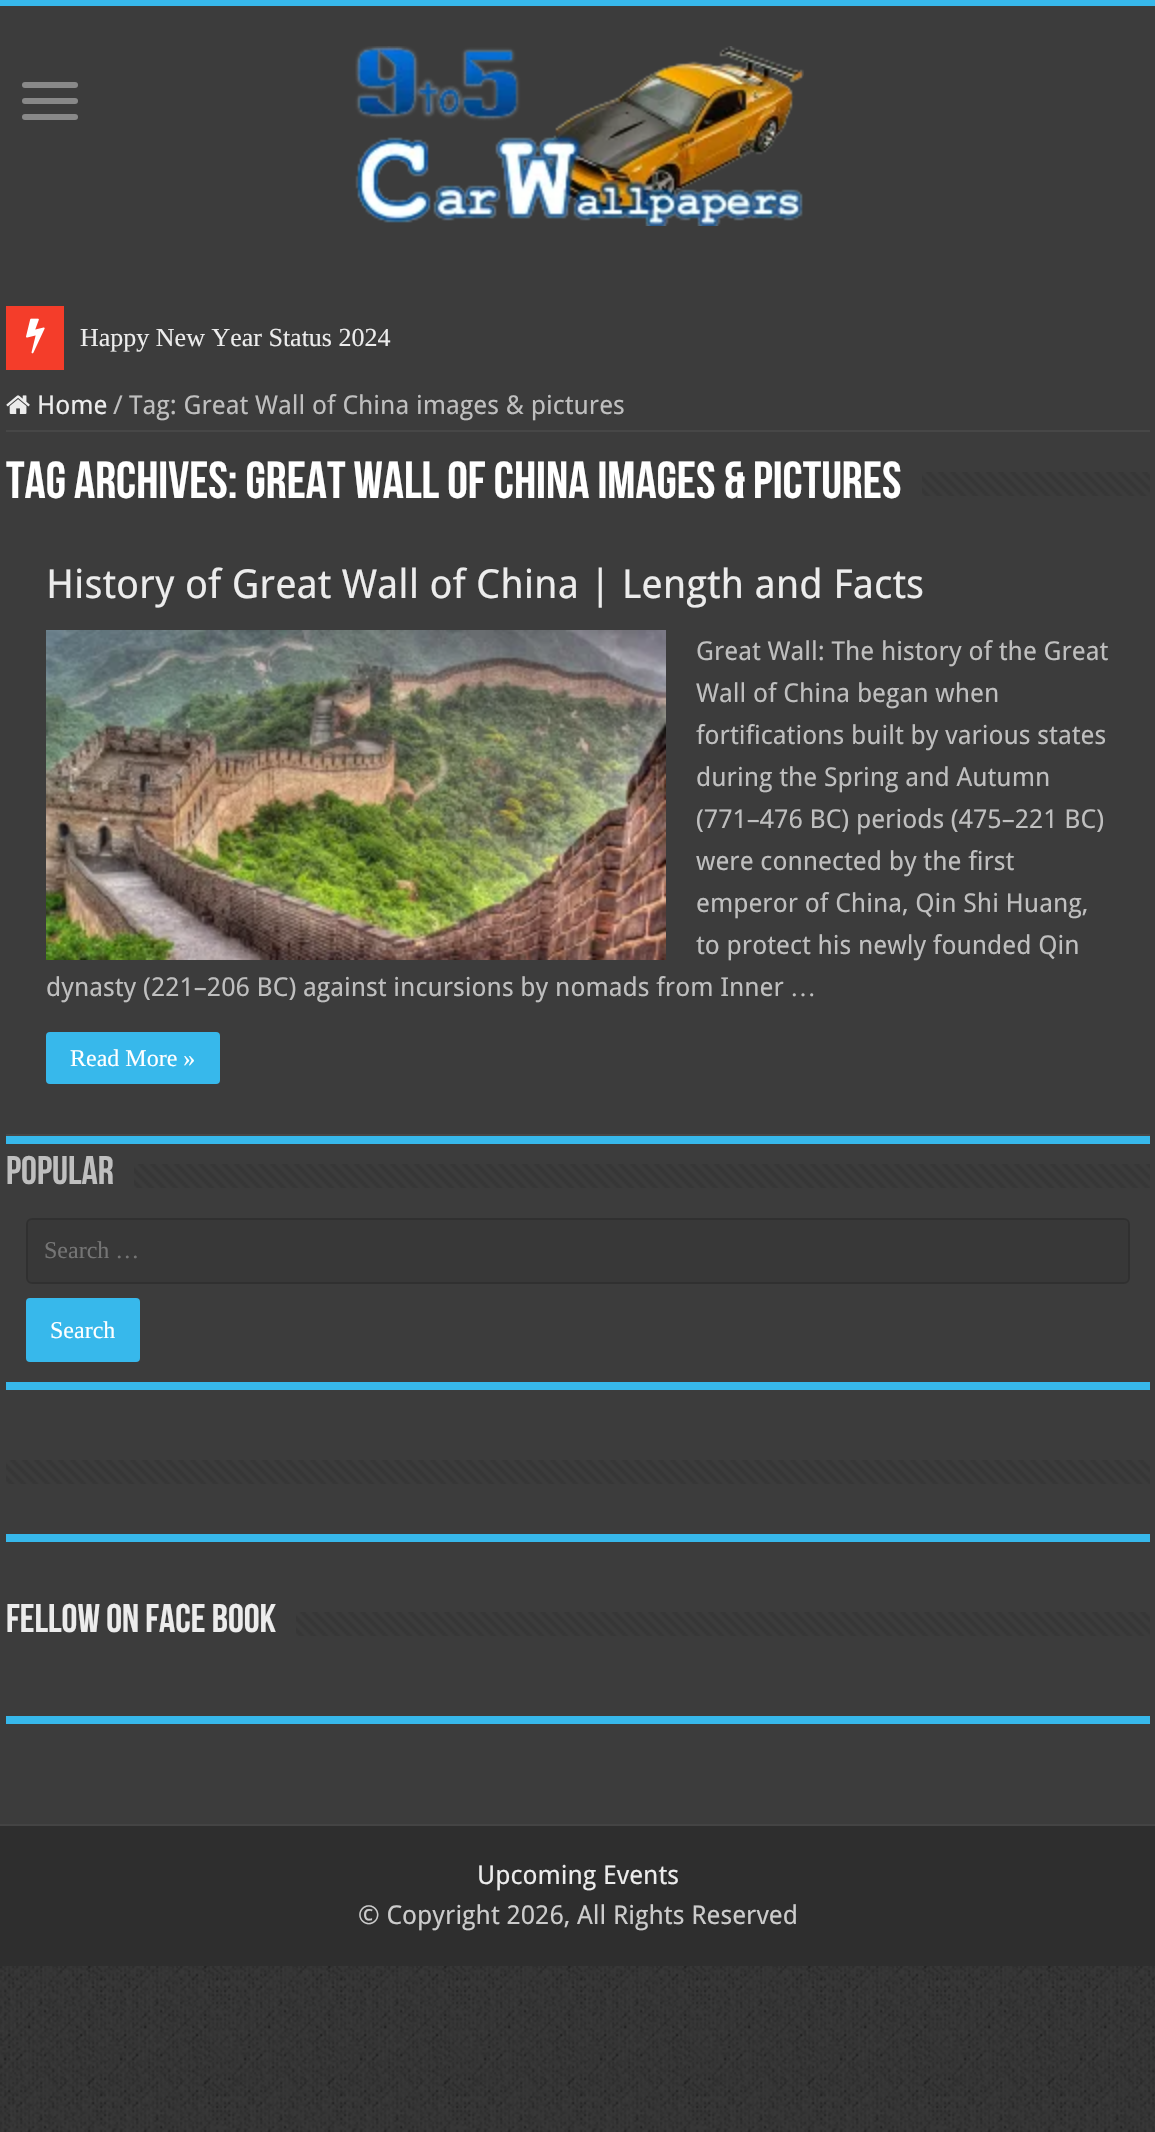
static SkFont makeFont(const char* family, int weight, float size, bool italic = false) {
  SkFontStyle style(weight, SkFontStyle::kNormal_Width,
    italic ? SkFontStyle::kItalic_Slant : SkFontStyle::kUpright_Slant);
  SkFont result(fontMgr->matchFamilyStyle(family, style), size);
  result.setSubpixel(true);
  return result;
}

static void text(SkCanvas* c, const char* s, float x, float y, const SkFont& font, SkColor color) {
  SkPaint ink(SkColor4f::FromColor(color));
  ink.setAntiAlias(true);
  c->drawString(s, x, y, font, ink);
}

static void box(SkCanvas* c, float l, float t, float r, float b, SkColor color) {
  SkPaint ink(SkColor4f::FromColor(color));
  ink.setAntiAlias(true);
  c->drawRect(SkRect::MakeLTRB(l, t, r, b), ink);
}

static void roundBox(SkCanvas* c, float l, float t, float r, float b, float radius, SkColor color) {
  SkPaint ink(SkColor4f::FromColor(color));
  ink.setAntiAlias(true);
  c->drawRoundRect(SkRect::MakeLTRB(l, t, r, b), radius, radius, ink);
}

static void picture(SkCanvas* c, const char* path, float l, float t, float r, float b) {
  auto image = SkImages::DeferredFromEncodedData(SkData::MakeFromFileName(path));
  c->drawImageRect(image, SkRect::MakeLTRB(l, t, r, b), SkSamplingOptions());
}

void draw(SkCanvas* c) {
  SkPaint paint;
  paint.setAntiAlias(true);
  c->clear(0xff000000);
  picture(c, "img_01.png", 0, 1966, 1155, 2132);
  box(c, 0, 6, 1155, 1824, 0xff3c3c3c);
  box(c, 0, 0, 1155, 6, 0xff37b8eb);
  roundBox(c, 22, 82, 78, 88, 3, 0xff888888);
  roundBox(c, 22, 98, 78, 104, 3, 0xff888888);
  roundBox(c, 22, 114, 78, 120, 3, 0xff888888);
  picture(c, "img_02.png", 355, 46, 804, 226);
  box(c, 6, 306, 64, 370, 0xfff43d2a);
  picture(c, "img_03.png", 26, 318, 45, 354);
  SkFont face1 = makeFont("Liberation Serif", 400, 26);
  text(c, "Happy New Year Status 2024", 80, 346, face1, 0xffececec);
  box(c, 6, 430, 1150, 432, 0xff474747);
  picture(c, "img_04.png", 6, 395, 30, 414);
  SkFont face2 = makeFont("Droid Sans", 400, 26);
  text(c, "Home", 37, 414, face2, 0xffececec);
  text(c, "/", 113, 414, face2, 0xffbfbfbf);
  text(c, "Tag: Great Wall of China images & pictures", 129, 414, face2, 0xffbfbfbf);
  SkFont face3 = makeFont("Bebas Neue", 700, 52);
  text(c, "Tag Archives: Great Wall of China images & pictures", 6, 498, face3, 0xffffffff);
  picture(c, "img_05.png", 922, 472, 1150, 496);
  box(c, 6, 1136, 1150, 1144, 0xff37b8eb);
  box(c, 6, 1134, 1150, 1136, 0xff474747);
  SkFont face4 = makeFont("Droid Sans", 400, 40);
  text(c, "History of Great Wall of China | Length and Facts", 46, 598, face4, 0xffececec);
  picture(c, "img_06.png", 46, 630, 666, 960);
  text(c, "Great Wall: The history of the Great", 696, 660, face2, 0xffbfbfbf);
  text(c, "Wall of China began when", 696, 702, face2, 0xffbfbfbf);
  text(c, "fortifications built by various states", 696, 744, face2, 0xffbfbfbf);
  text(c, "during the Spring and Autumn", 696, 786, face2, 0xffbfbfbf);
  text(c, "(771–476 BC) periods (475–221 BC)", 696, 828, face2, 0xffbfbfbf);
  text(c, "were connected by the first", 696, 870, face2, 0xffbfbfbf);
  text(c, "emperor of China, Qin Shi Huang,", 696, 912, face2, 0xffbfbfbf);
  text(c, "to protect his newly founded Qin", 696, 954, face2, 0xffbfbfbf);
  text(c, "dynasty (221–206 BC) against incursions by nomads from Inner", 46, 996, face2, 0xffbfbfbf);
  text(c, "…", 790, 996, face1, 0xffbfbfbf);
  roundBox(c, 46, 1032, 220, 1084, 4, 0xff37b8eb);
  SkFont face5 = makeFont("Liberation Serif", 400, 24);
  text(c, "Read More »", 70, 1066, face5, 0xffffffff);
  SkFont face6 = makeFont("Bebas Neue", 700, 40);
  text(c, "popular", 6, 1184, face6, 0xffbfbfbf);
  picture(c, "img_07.png", 134, 1164, 1150, 1188);
  box(c, 6, 1382, 1150, 1390, 0xff37b8eb);
  paint.setColor(0xff383838);
  c->drawRoundRect(SkRect::MakeLTRB(27, 1219, 1129, 1283), 5, 5, paint);
  paint.setStyle(SkPaint::kStroke_Style);
  paint.setStrokeWidth(2);
  paint.setColor(0xff303030);
  c->drawRoundRect(SkRect::MakeLTRB(27, 1219, 1129, 1283), 5, 5, paint);
  text(c, "Search …", 44, 1258, face5, 0xff757575);
  roundBox(c, 26, 1298, 140, 1362, 4, 0xff37b8eb);
  text(c, "Search", 50, 1338, face5, 0xffffffff);
  picture(c, "img_08.png", 6, 1460, 1150, 1484);
  box(c, 6, 1534, 1150, 1542, 0xff37b8eb);
  text(c, "Fellow On Face Book", 6, 1632, face6, 0xffececec);
  picture(c, "img_09.png", 296, 1612, 1150, 1636);
  box(c, 6, 1716, 1150, 1724, 0xff37b8eb);
  box(c, 0, 1826, 1155, 1966, 0xff2e2e2e);
  box(c, 0, 1824, 1155, 1826, 0xff444444);
  text(c, "Upcoming Events", 477, 1884, face2, 0xffececec);
  text(c, "© Copyright 2026, All Rights Reserved", 358, 1924, face2, 0xffcccccc);
}
